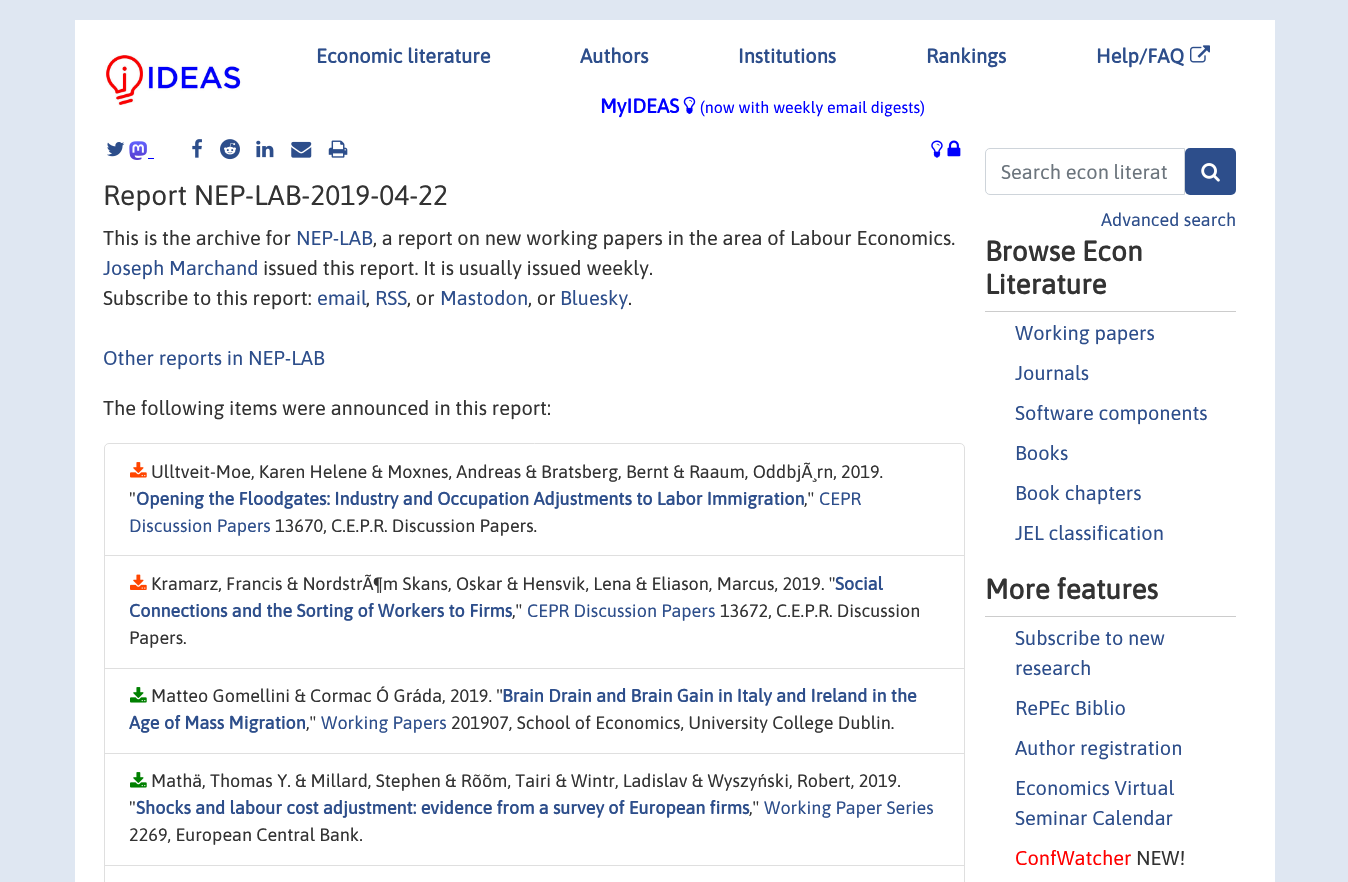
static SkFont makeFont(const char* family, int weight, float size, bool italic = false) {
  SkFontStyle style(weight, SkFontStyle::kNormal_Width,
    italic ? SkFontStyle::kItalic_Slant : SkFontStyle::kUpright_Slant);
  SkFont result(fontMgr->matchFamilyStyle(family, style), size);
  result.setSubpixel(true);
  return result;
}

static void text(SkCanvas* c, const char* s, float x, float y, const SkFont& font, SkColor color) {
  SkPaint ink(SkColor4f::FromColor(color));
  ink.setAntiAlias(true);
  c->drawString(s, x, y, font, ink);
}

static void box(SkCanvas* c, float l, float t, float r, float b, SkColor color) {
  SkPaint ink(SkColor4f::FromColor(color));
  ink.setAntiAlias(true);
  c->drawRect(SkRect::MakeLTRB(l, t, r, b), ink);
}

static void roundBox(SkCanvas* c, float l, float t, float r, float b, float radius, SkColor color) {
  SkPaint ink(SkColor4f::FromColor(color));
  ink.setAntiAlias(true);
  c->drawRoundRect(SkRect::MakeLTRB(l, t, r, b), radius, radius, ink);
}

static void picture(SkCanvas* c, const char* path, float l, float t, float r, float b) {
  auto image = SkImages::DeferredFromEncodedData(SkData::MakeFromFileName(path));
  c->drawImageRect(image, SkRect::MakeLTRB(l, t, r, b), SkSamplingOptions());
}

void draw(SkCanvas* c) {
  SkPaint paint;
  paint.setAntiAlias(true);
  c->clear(0xffdfe7f2);
  box(c, 75, 20, 1275, 882, 0xffffffff);
  picture(c, "img_01.png", 105, 55, 242, 106);
  SkFont face1 = makeFont("Asap", 700, 20);
  text(c, "Economic literature", 316, 63, face1, 0xff2d4e8b);
  text(c, "Authors", 580, 63, face1, 0xff2d4e8b);
  text(c, "Institutions", 738, 63, face1, 0xff2d4e8b);
  text(c, "Rankings", 926, 63, face1, 0xff2d4e8b);
  text(c, "Help/FAQ", 1096, 63, face1, 0xff2d4e8b);
  picture(c, "img_02.png", 1190, 45, 1210, 63);
  text(c, "MyIDEAS", 600, 113, face1, 0xff0000ff);
  picture(c, "img_03.png", 683, 96, 696, 114);
  SkFont face2 = makeFont("Asap", 400, 16);
  text(c, "(now with weekly email digests)", 700, 113, face2, 0xff0000ff);
  picture(c, "img_04.png", 107, 142, 125, 157);
  picture(c, "img_05.png", 129, 141, 147, 160);
  box(c, 148, 158, 154, 159, 0xff0000ff);
  picture(c, "img_06.png", 192, 139, 202, 158);
  picture(c, "img_07.png", 220, 139, 240, 160);
  picture(c, "img_08.png", 256, 140, 274, 158);
  picture(c, "img_09.png", 291, 141, 312, 158);
  picture(c, "img_10.png", 328, 140, 348, 158);
  picture(c, "img_11.png", 931, 140, 943, 158);
  picture(c, "img_12.png", 947, 140, 961, 157);
  SkFont face3 = makeFont("Asap", 400, 28);
  text(c, "Report NEP-LAB-2019-04-22", 103, 205, face3, 0xff333333);
  SkFont face4 = makeFont("Asap", 400, 20);
  text(c, "This is the archive for", 103, 245, face4, 0xff333333);
  text(c, "NEP-LAB", 296, 245, face4, 0xff2d4e8b);
  text(c, ", a report on new working papers in the area of Labour Economics.", 373, 245, face4, 0xff333333);
  text(c, "Joseph Marchand", 103, 275, face4, 0xff2d4e8b);
  text(c, "issued this report. It is usually issued weekly.", 263, 275, face4, 0xff333333);
  text(c, "Subscribe to this report:", 103, 305, face4, 0xff333333);
  text(c, "email", 317, 305, face4, 0xff2d4e8b);
  text(c, ",", 366, 305, face4, 0xff333333);
  text(c, "RSS", 375, 305, face4, 0xff2d4e8b);
  text(c, ", or", 407, 305, face4, 0xff333333);
  text(c, "Mastodon", 440, 305, face4, 0xff2d4e8b);
  text(c, ", or", 528, 305, face4, 0xff333333);
  text(c, "Bluesky", 560, 305, face4, 0xff2d4e8b);
  text(c, ".", 628, 305, face4, 0xff333333);
  text(c, "Other reports in NEP-LAB", 103, 365, face4, 0xff2d4e8b);
  text(c, "The following items were announced in this report:", 103, 415, face4, 0xff333333);
  paint.setStyle(SkPaint::kStroke_Style);
  paint.setStrokeWidth(1);
  paint.setColor(0xffdfdfdf);
  c->drawPath(SkPathBuilder().moveTo(109, 443.5f).lineTo(960, 443.5f).cubicTo(962.5f, 443.5f, 964.5f, 445.5f, 964.5f, 448).lineTo(964.5f, 555.5f).lineTo(104.5f, 555.5f).lineTo(104.5f, 448).cubicTo(104.5f, 445.5f, 106.5f, 443.5f, 109, 443.5f).close().detach(), paint);
  picture(c, "img_13.png", 130, 462, 147, 478);
  SkFont face5 = makeFont("Asap", 400, 18);
  text(c, "Ulltveit-Moe, Karen Helene & Moxnes, Andreas & Bratsberg, Bernt & Raaum, OddbjÃ¸rn, 2019.", 151, 478, face5, 0xff333333);
  text(c, "\"", 129, 505, face5, 0xff333333);
  SkFont face6 = makeFont("Asap", 700, 18);
  text(c, "Opening the Floodgates: Industry and Occupation Adjustments to Labor Immigration", 136, 505, face6, 0xff2d4e8b);
  text(c, ",\"", 804, 505, face5, 0xff333333);
  text(c, "CEPR", 819, 505, face5, 0xff2d4e8b);
  text(c, "Discussion Papers", 129, 532, face5, 0xff2d4e8b);
  text(c, "13670, C.E.P.R. Discussion Papers.", 275, 532, face5, 0xff333333);
  c->drawRect(SkRect::MakeLTRB(104.5f, 555.5f, 964.5f, 668.5f), paint);
  picture(c, "img_14.png", 130, 574, 147, 590);
  text(c, "Kramarz, Francis & NordstrÃ¶m Skans, Oskar & Hensvik, Lena & Eliason, Marcus, 2019. \"", 151, 590, face5, 0xff333333);
  text(c, "Social", 835, 590, face6, 0xff2d4e8b);
  text(c, "Connections and the Sorting of Workers to Firms", 129, 617, face6, 0xff2d4e8b);
  text(c, ",\"", 512, 617, face5, 0xff333333);
  text(c, "CEPR Discussion Papers", 527, 617, face5, 0xff2d4e8b);
  text(c, "13672, C.E.P.R. Discussion", 720, 617, face5, 0xff333333);
  text(c, "Papers.", 129, 644, face5, 0xff333333);
  c->drawRect(SkRect::MakeLTRB(104.5f, 668.5f, 964.5f, 753.5f), paint);
  picture(c, "img_15.png", 130, 687, 147, 703);
  text(c, "Matteo Gomellini & Cormac Ó Gráda, 2019. \"", 151, 702, face5, 0xff333333);
  text(c, "Brain Drain and Brain Gain in Italy and Ireland in the", 502, 702, face6, 0xff2d4e8b);
  text(c, "Age of Mass Migration", 129, 729, face6, 0xff2d4e8b);
  text(c, ",\"", 306, 729, face5, 0xff333333);
  text(c, "Working Papers", 321, 729, face5, 0xff2d4e8b);
  text(c, "201907, School of Economics, University College Dublin.", 451, 729, face5, 0xff333333);
  c->drawRect(SkRect::MakeLTRB(104.5f, 753.5f, 964.5f, 865.5f), paint);
  picture(c, "img_15.png", 130, 772, 147, 788);
  text(c, "Mathä, Thomas Y. & Millard, Stephen & Rõõm, Tairi & Wintr, Ladislav & Wyszyński, Robert, 2019.", 151, 787, face5, 0xff333333);
  text(c, "\"", 129, 814, face5, 0xff333333);
  text(c, "Shocks and labour cost adjustment: evidence from a survey of European firms", 136, 814, face6, 0xff2d4e8b);
  text(c, ",\"", 749, 814, face5, 0xff333333);
  text(c, "Working Paper Series", 764, 814, face5, 0xff2d4e8b);
  text(c, "2269, European Central Bank.", 129, 841, face5, 0xff333333);
  c->drawRect(SkRect::MakeLTRB(104.5f, 865.5f, 964.5f, 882.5f), paint);
  paint.setColor(0xffced4da);
  c->drawPath(SkPathBuilder().moveTo(990, 148.5f).lineTo(1184.5f, 148.5f).lineTo(1184.5f, 194.5f).lineTo(990, 194.5f).cubicTo(987.5f, 194.5f, 985.5f, 192.5f, 985.5f, 190).lineTo(985.5f, 153).cubicTo(985.5f, 150.5f, 987.5f, 148.5f, 990, 148.5f).close().detach(), paint);
  text(c, "Search econ literat", 1001, 179, face4, 0xff6c757d);
  roundBox(c, 1185, 148, 1236, 195, 5, 0xff2d4e8b);
  picture(c, "img_16.png", 1201, 163, 1220, 182);
  text(c, "Advanced search", 1101, 226, face5, 0xff2d4e8b);
  SkFont face7 = makeFont("Asap", 700, 28);
  text(c, "Browse Econ", 985, 261, face7, 0xff333333);
  text(c, "Literature", 985, 294, face7, 0xff333333);
  box(c, 985, 311, 1236, 312, 0xffcccccc);
  text(c, "Working papers", 1015, 340, face4, 0xff2d4e8b);
  text(c, "Journals", 1015, 380, face4, 0xff2d4e8b);
  text(c, "Software components", 1015, 420, face4, 0xff2d4e8b);
  text(c, "Books", 1015, 460, face4, 0xff2d4e8b);
  text(c, "Book chapters", 1015, 500, face4, 0xff2d4e8b);
  text(c, "JEL classification", 1015, 540, face4, 0xff2d4e8b);
  text(c, "More features", 985, 599, face7, 0xff333333);
  box(c, 985, 616, 1236, 617, 0xffcccccc);
  text(c, "Subscribe to new", 1015, 645, face4, 0xff2d4e8b);
  text(c, "research", 1015, 675, face4, 0xff2d4e8b);
  text(c, "RePEc Biblio", 1015, 715, face4, 0xff2d4e8b);
  text(c, "Author registration", 1015, 755, face4, 0xff2d4e8b);
  text(c, "Economics Virtual", 1015, 795, face4, 0xff2d4e8b);
  text(c, "Seminar Calendar", 1015, 825, face4, 0xff2d4e8b);
  text(c, "ConfWatcher", 1015, 865, face4, 0xffff0000);
  text(c, "NEW!", 1136, 865, face4, 0xff333333);
}
